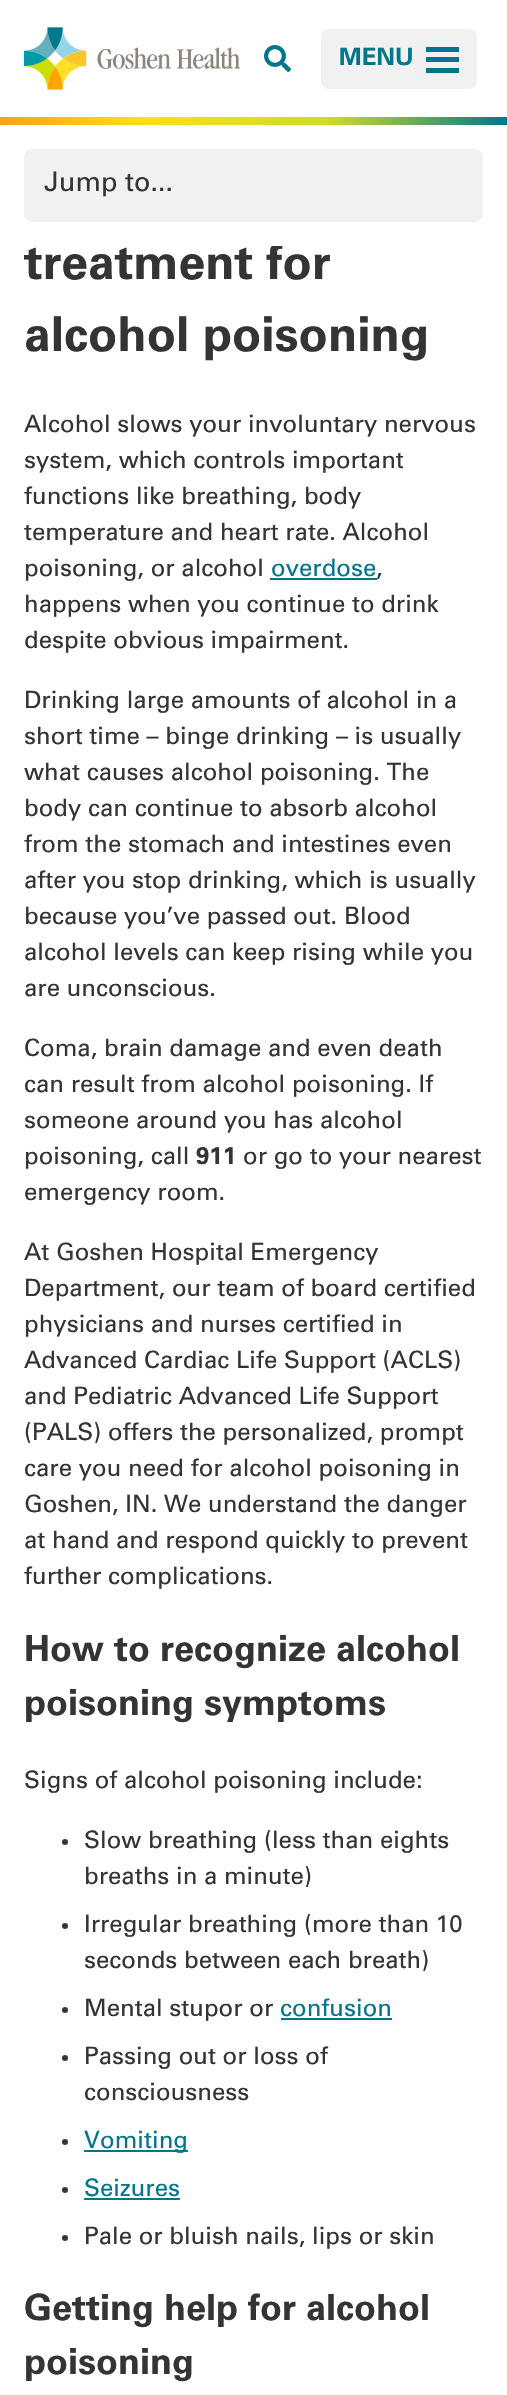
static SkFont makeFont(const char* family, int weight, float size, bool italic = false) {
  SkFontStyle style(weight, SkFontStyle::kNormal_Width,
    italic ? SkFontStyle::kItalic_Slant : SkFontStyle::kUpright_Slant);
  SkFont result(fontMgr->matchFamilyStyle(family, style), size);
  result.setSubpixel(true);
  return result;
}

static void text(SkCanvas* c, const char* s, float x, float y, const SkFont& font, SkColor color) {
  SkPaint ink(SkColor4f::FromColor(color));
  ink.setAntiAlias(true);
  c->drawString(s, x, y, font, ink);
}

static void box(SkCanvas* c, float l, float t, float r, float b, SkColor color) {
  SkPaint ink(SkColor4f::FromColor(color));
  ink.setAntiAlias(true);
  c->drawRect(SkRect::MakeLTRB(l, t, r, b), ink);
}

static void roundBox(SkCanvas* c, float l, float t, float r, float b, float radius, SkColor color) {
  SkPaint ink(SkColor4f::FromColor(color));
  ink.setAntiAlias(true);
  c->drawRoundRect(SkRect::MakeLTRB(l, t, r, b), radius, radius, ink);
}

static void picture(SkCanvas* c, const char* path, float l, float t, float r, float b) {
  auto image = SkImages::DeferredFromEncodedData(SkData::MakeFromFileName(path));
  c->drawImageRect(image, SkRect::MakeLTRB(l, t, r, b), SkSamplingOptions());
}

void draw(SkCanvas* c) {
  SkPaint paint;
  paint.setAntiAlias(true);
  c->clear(0xffffffff);
  picture(c, "img_01.png", 24, 27, 240, 90);
  picture(c, "img_02.png", 264, 45, 291, 72);
  roundBox(c, 321, 29, 477, 89, 8, 0xfff1f1f1);
  SkFont face1 = makeFont("Univers", 700, 24);
  text(c, "MENU", 339, 65, face1, 0xff01768a);
  box(c, 426, 47, 459, 52, 0xff01768a);
  box(c, 426, 57, 459, 62, 0xff01768a);
  box(c, 426, 68, 459, 73, 0xff01768a);
  {
    const SkColor colors[] = {0xfffaa21a, 0xfffde014, 0xffcddb28, 0xff01768a};
    const float stops[] = {0, 0.28f, 0.65f, 1};
    const SkPoint ends[] = {{0, 121}, {507, 121}};
    paint.setShader(SkGradientShader::MakeLinear(ends, colors, stops, 4, SkTileMode::kClamp));
    paint.setAlpha(255);
  }
  c->drawRect(SkRect::MakeLTRB(0, 117, 507, 125), paint);
  paint.setShader(nullptr);
  paint.setColor(0xfff1f1f1);
  c->drawRoundRect(SkRect::MakeLTRB(25, 150, 482, 221), 7, 7, paint);
  paint.setStyle(SkPaint::kStroke_Style);
  paint.setStrokeWidth(2);
  c->drawRoundRect(SkRect::MakeLTRB(25, 150, 482, 221), 7, 7, paint);
  SkFont face2 = makeFont("Univers", 400, 27);
  text(c, "Jump to...", 44, 191, face2, 0xff343434);
  SkFont face3 = makeFont("Univers", 700, 48);
  text(c, "treatment for", 24, 279, face3, 0xff343434);
  box(c, 271, 243, 283, 246, 0xffffffff);
  text(c, "alcohol poisoning", 24, 351, face3, 0xff343434);
  SkFont face4 = makeFont("Univers", 400, 24);
  text(c, "Alcohol slows your involuntary nervous", 24, 432, face4, 0xff343434);
  text(c, "system, which controls important", 24, 468, face4, 0xff343434);
  text(c, "functions like breathing, body", 24, 504, face4, 0xff343434);
  text(c, "temperature and heart rate. Alcohol", 24, 540, face4, 0xff343434);
  text(c, "poisoning, or alcohol", 24, 576, face4, 0xff343434);
  text(c, "overdose", 271, 576, face4, 0xff01768a);
  box(c, 270, 578, 377, 580, 0xff01768a);
  text(c, ",", 376, 576, face4, 0xff343434);
  text(c, "happens when you continue to drink", 24, 612, face4, 0xff343434);
  text(c, "despite obvious impairment.", 24, 648, face4, 0xff343434);
  text(c, "Drinking large amounts of alcohol in a", 24, 708, face4, 0xff343434);
  text(c, "short time – binge drinking – is usually", 24, 744, face4, 0xff343434);
  text(c, "what causes alcohol poisoning. The", 24, 780, face4, 0xff343434);
  text(c, "body can continue to absorb alcohol", 24, 816, face4, 0xff343434);
  text(c, "from the stomach and intestines even", 24, 852, face4, 0xff343434);
  text(c, "after you stop drinking, which is usually", 24, 888, face4, 0xff343434);
  text(c, "because you’ve passed out. Blood", 24, 924, face4, 0xff343434);
  text(c, "alcohol levels can keep rising while you", 24, 960, face4, 0xff343434);
  text(c, "are unconscious.", 24, 996, face4, 0xff343434);
  text(c, "Coma, brain damage and even death", 24, 1056, face4, 0xff343434);
  text(c, "can result from alcohol poisoning. If", 24, 1092, face4, 0xff343434);
  text(c, "someone around you has alcohol", 24, 1128, face4, 0xff343434);
  text(c, "poisoning, call", 24, 1164, face4, 0xff343434);
  text(c, "911", 196, 1164, face1, 0xff343434);
  text(c, "or go to your nearest", 243, 1164, face4, 0xff343434);
  text(c, "emergency room.", 24, 1200, face4, 0xff343434);
  text(c, "At Goshen Hospital Emergency", 24, 1260, face4, 0xff343434);
  text(c, "Department, our team of board certified", 24, 1296, face4, 0xff343434);
  text(c, "physicians and nurses certified in", 24, 1332, face4, 0xff343434);
  text(c, "Advanced Cardiac Life Support (ACLS)", 24, 1368, face4, 0xff343434);
  text(c, "and Pediatric Advanced Life Support", 24, 1404, face4, 0xff343434);
  text(c, "(PALS) offers the personalized, prompt", 24, 1440, face4, 0xff343434);
  text(c, "care you need for alcohol poisoning in", 24, 1476, face4, 0xff343434);
  text(c, "Goshen, IN. We understand the danger", 24, 1512, face4, 0xff343434);
  text(c, "at hand and respond quickly to prevent", 24, 1548, face4, 0xff343434);
  text(c, "further complications.", 24, 1584, face4, 0xff343434);
  SkFont face5 = makeFont("Univers", 700, 36);
  text(c, "How to recognize alcohol", 24, 1661, face5, 0xff343434);
  text(c, "poisoning symptoms", 24, 1715, face5, 0xff343434);
  text(c, "Signs of alcohol poisoning include:", 24, 1788, face4, 0xff343434);
  paint.setStyle(SkPaint::kFill_Style);
  paint.setColor(0xff343434);
  c->drawCircle(65, 1842, 3, paint);
  text(c, "Slow breathing (less than eights", 84, 1848, face4, 0xff343434);
  text(c, "breaths in a minute)", 84, 1884, face4, 0xff343434);
  c->drawCircle(65, 1926, 3, paint);
  text(c, "Irregular breathing (more than 10", 84, 1932, face4, 0xff343434);
  text(c, "seconds between each breath)", 84, 1968, face4, 0xff343434);
  c->drawCircle(65, 2010, 3, paint);
  text(c, "Mental stupor or", 84, 2016, face4, 0xff343434);
  text(c, "confusion", 280, 2016, face4, 0xff01768a);
  box(c, 281, 2018, 392, 2020, 0xff01768a);
  c->drawCircle(65, 2058, 3, paint);
  text(c, "Passing out or loss of", 84, 2064, face4, 0xff343434);
  text(c, "consciousness", 84, 2100, face4, 0xff343434);
  c->drawCircle(65, 2142, 3, paint);
  box(c, 84, 2150, 188, 2152, 0xff01768a);
  text(c, "Vomiting", 84, 2148, face4, 0xff01768a);
  c->drawCircle(65, 2190, 3, paint);
  text(c, "Seizures", 84, 2196, face4, 0xff01768a);
  box(c, 84, 2198, 180, 2200, 0xff01768a);
  c->drawCircle(65, 2238, 3, paint);
  text(c, "Pale or bluish nails, lips or skin", 84, 2244, face4, 0xff343434);
  text(c, "Getting help for alcohol", 24, 2320, face5, 0xff343434);
  text(c, "poisoning", 24, 2374, face5, 0xff343434);
}
